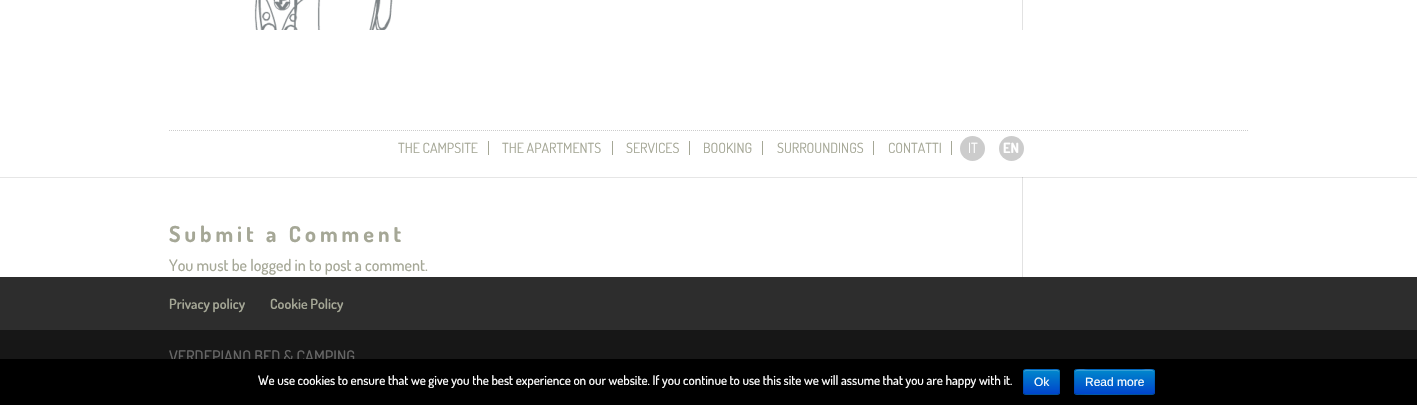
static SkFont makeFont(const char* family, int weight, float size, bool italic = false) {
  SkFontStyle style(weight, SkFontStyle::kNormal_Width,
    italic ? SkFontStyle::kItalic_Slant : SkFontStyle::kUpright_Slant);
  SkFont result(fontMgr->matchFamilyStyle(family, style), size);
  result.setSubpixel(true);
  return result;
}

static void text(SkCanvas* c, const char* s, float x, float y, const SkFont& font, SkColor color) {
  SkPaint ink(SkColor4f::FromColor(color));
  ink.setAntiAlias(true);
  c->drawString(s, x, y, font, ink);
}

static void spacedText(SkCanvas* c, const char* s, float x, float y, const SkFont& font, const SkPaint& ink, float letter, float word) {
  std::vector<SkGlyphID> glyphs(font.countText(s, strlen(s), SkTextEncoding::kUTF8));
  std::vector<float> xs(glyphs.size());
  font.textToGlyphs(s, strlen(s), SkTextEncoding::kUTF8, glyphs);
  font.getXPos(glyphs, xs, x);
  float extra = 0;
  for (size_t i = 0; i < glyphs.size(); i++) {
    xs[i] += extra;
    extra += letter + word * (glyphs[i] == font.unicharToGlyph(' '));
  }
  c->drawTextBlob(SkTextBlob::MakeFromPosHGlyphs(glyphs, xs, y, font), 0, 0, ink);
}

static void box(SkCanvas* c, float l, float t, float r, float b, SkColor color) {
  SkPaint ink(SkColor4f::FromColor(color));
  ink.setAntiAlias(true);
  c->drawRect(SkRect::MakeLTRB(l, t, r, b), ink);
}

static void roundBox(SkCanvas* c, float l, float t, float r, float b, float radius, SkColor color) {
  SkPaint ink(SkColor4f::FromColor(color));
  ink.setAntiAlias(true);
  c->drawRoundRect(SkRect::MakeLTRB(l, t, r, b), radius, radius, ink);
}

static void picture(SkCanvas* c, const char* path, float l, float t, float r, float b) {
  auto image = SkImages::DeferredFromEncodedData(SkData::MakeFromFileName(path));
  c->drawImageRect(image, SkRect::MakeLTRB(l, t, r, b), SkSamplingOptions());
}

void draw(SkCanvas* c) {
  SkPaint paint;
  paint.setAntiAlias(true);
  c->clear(0xffffffff);
  box(c, 0, 177, 1417, 178, 0xffe6e6e6);
  box(c, 1022, 0, 1023, 277, 0xffe2e2e2);
  box(c, 1022, 30, 1023, 177, 0xffffffff);
  paint.setStyle(SkPaint::kStroke_Style);
  paint.setStrokeWidth(1);
  paint.setColor(0xffcccccc);
  paint.setPathEffect(SkDashPathEffect::Make({{1, 1}}, 0));
  c->drawPath(SkPathBuilder().moveTo(169, 130.5f).lineTo(1249, 130.5f).detach(), paint);
  paint.setPathEffect(nullptr);
  box(c, 488, 141, 489, 155, 0xffa5a796);
  SkFont face1 = makeFont("Dosis", 400, 14);
  text(c, "THE CAMPSITE", 398, 153, face1, 0xffa5a796);
  box(c, 612, 141, 613, 155, 0xffa5a796);
  text(c, "THE APARTMENTS", 502, 153, face1, 0xffa5a796);
  box(c, 689, 141, 690, 155, 0xffa5a796);
  text(c, "SERVICES", 626, 153, face1, 0xffa5a796);
  box(c, 762, 141, 763, 155, 0xffa5a796);
  text(c, "BOOKING", 703, 153, face1, 0xffa5a796);
  box(c, 873, 141, 874, 155, 0xffa5a796);
  text(c, "SURROUNDINGS", 777, 153, face1, 0xffa5a796);
  box(c, 951, 141, 952, 155, 0xffa5a796);
  text(c, "CONTATTI", 888, 153, face1, 0xffa5a796);
  paint.setStyle(SkPaint::kFill_Style);
  c->drawCircle(972.5f, 148.5f, 12.5f, paint);
  text(c, "IT", 968, 153, face1, 0xffffffff);
  c->drawCircle(1011.5f, 148.5f, 12.5f, paint);
  SkFont face2 = makeFont("Dosis", 700, 14);
  text(c, "EN", 1003, 153, face2, 0xffffffff);
  picture(c, "img_01.png", 254, 0, 393, 30);
  SkFont face3 = makeFont("Dosis", 700, 22);
  paint.setColor(0xffa5a796);
  spacedText(c, "Submit a Comment", 169, 242, face3, paint, 4, 0);
  SkFont face4 = makeFont("Dosis", 500, 16);
  text(c, "You must be logged in to post a comment.", 169, 271, face4, 0xffa5a796);
  box(c, 1022, 177, 1023, 178, 0xffcbcbcb);
  box(c, 0, 277, 1417, 330, 0xff2d2d2d);
  SkFont face5 = makeFont("Dosis", 600, 14);
  text(c, "Privacy policy", 169, 309, face5, 0xffa5a796);
  text(c, "Cookie Policy", 270, 309, face5, 0xffa5a796);
  box(c, 0, 330, 1417, 359, 0xff171717);
  text(c, "VERDEPIANO BED & CAMPING", 169, 362, face4, 0xff666666);
  box(c, 0, 359, 1417, 405, 0xff000000);
  SkFont face6 = makeFont("Dosis", 500, 13);
  text(c, "We use cookies to ensure that we give you the best experience on our website. If you continue to use this site we will assume that you are happy with it.", 258, 385, face6, 0xffffffff);
  roundBox(c, 1023, 369, 1060, 395, 3, 0xff006dcc);
  c->save();
  c->clipPath(SkPathBuilder().moveTo(1026, 369).lineTo(1057, 369).cubicTo(1058.5f, 369, 1060, 370.5f, 1060, 372).lineTo(1060, 392).cubicTo(1060, 393.5f, 1058.5f, 395, 1057, 395).lineTo(1026, 395).cubicTo(1024.5f, 395, 1023, 393.5f, 1023, 392).lineTo(1023, 372).cubicTo(1023, 370.5f, 1024.5f, 369, 1026, 369).close().detach(), true);
  {
    const SkColor colors[] = {0xff0088cc, 0xff0044cc};
    const float stops[] = {0, 1};
    const SkPoint ends[] = {{1042, 370}, {1042, 394}};
    paint.setShader(SkGradientShader::MakeLinear(ends, colors, stops, 2, SkTileMode::kClamp));
    paint.setAlpha(255);
  }
  c->drawRect(SkRect::MakeLTRB(1023, 370, 1060, 394), paint);
  c->restore();
  paint.setShader(nullptr);
  paint.setColor(0x33ffffff);
  c->drawPath(SkPathBuilder().moveTo(1026, 371).lineTo(1057, 371).cubicTo(1058, 371, 1059, 372, 1059, 373).cubicTo(1059, 368.5f, 1055.5f, 370, 1052, 370).lineTo(1031, 370).cubicTo(1027.5f, 370, 1024, 368.5f, 1024, 373).cubicTo(1024, 372, 1025, 371, 1026, 371).close().detach(), paint);
  paint.setStyle(SkPaint::kStroke_Style);
  paint.setColor(0x40000000);
  c->drawPath(SkPathBuilder().moveTo(1059, 394).cubicTo(1058.5f, 394, 1057.5f, 394.5f, 1057, 394.5f).lineTo(1026, 394.5f).cubicTo(1025.5f, 394.5f, 1024.5f, 394, 1024, 394).detach(), paint);
  paint.setColor(0x1a000000);
  c->drawPath(SkPathBuilder().moveTo(1024, 394).cubicTo(1024, 393.5f, 1023.5f, 392.5f, 1023.5f, 392).lineTo(1023.5f, 372).cubicTo(1023.5f, 371.5f, 1024, 370.5f, 1024, 370).cubicTo(1024.5f, 370, 1025.5f, 369.5f, 1026, 369.5f).lineTo(1057, 369.5f).cubicTo(1057.5f, 369.5f, 1058.5f, 370, 1059, 370).cubicTo(1059, 370.5f, 1059.5f, 371.5f, 1059.5f, 372).lineTo(1059.5f, 392).cubicTo(1059.5f, 392.5f, 1059, 393.5f, 1059, 394).detach(), paint);
  SkFont face7 = makeFont("Liberation Sans", 400, 12);
  text(c, "Ok", 1034, 386, face7, 0xffffffff);
  roundBox(c, 1074, 369, 1155, 395, 3, 0xff006dcc);
  c->save();
  c->clipPath(SkPathBuilder().moveTo(1077, 369).lineTo(1152, 369).cubicTo(1153.5f, 369, 1155, 370.5f, 1155, 372).lineTo(1155, 392).cubicTo(1155, 393.5f, 1153.5f, 395, 1152, 395).lineTo(1077, 395).cubicTo(1075.5f, 395, 1074, 393.5f, 1074, 392).lineTo(1074, 372).cubicTo(1074, 370.5f, 1075.5f, 369, 1077, 369).close().detach(), true);
  paint.setStyle(SkPaint::kFill_Style);
  {
    const SkColor colors[] = {0xff0088cc, 0xff0044cc};
    const float stops[] = {0, 1};
    const SkPoint ends[] = {{1115, 370}, {1115, 394}};
    paint.setShader(SkGradientShader::MakeLinear(ends, colors, stops, 2, SkTileMode::kClamp));
    paint.setAlpha(255);
  }
  c->drawRect(SkRect::MakeLTRB(1074, 370, 1155, 394), paint);
  c->restore();
  paint.setShader(nullptr);
  paint.setColor(0x33ffffff);
  c->drawPath(SkPathBuilder().moveTo(1077, 371).lineTo(1152, 371).cubicTo(1153, 371, 1154, 372, 1154, 373).cubicTo(1154, 367, 1143, 370, 1140, 370).lineTo(1090, 370).cubicTo(1086, 370, 1075, 367, 1075, 373).cubicTo(1075, 372, 1076, 371, 1077, 371).close().detach(), paint);
  paint.setStyle(SkPaint::kStroke_Style);
  paint.setColor(0x40000000);
  c->drawPath(SkPathBuilder().moveTo(1154, 394).lineTo(1152, 394.5f).lineTo(1139.5f, 394.5f).cubicTo(1132.5f, 394.5f, 1077.5f, 395.5f, 1075.5f, 394).lineTo(1075, 394).detach(), paint);
  paint.setColor(0x1a000000);
  c->drawPath(SkPathBuilder().moveTo(1075, 394).cubicTo(1073.5f, 392, 1074.5f, 384.5f, 1074.5f, 382).cubicTo(1074.5f, 366.5f, 1072.5f, 369.5f, 1089.5f, 369.5f).lineTo(1139.5f, 369.5f).cubicTo(1158, 369.5f, 1154.5f, 367, 1154.5f, 385.5f).cubicTo(1154.5f, 387.5f, 1155.5f, 392, 1154, 394).detach(), paint);
  text(c, "Read more", 1085, 386, face7, 0xffffffff);
}
